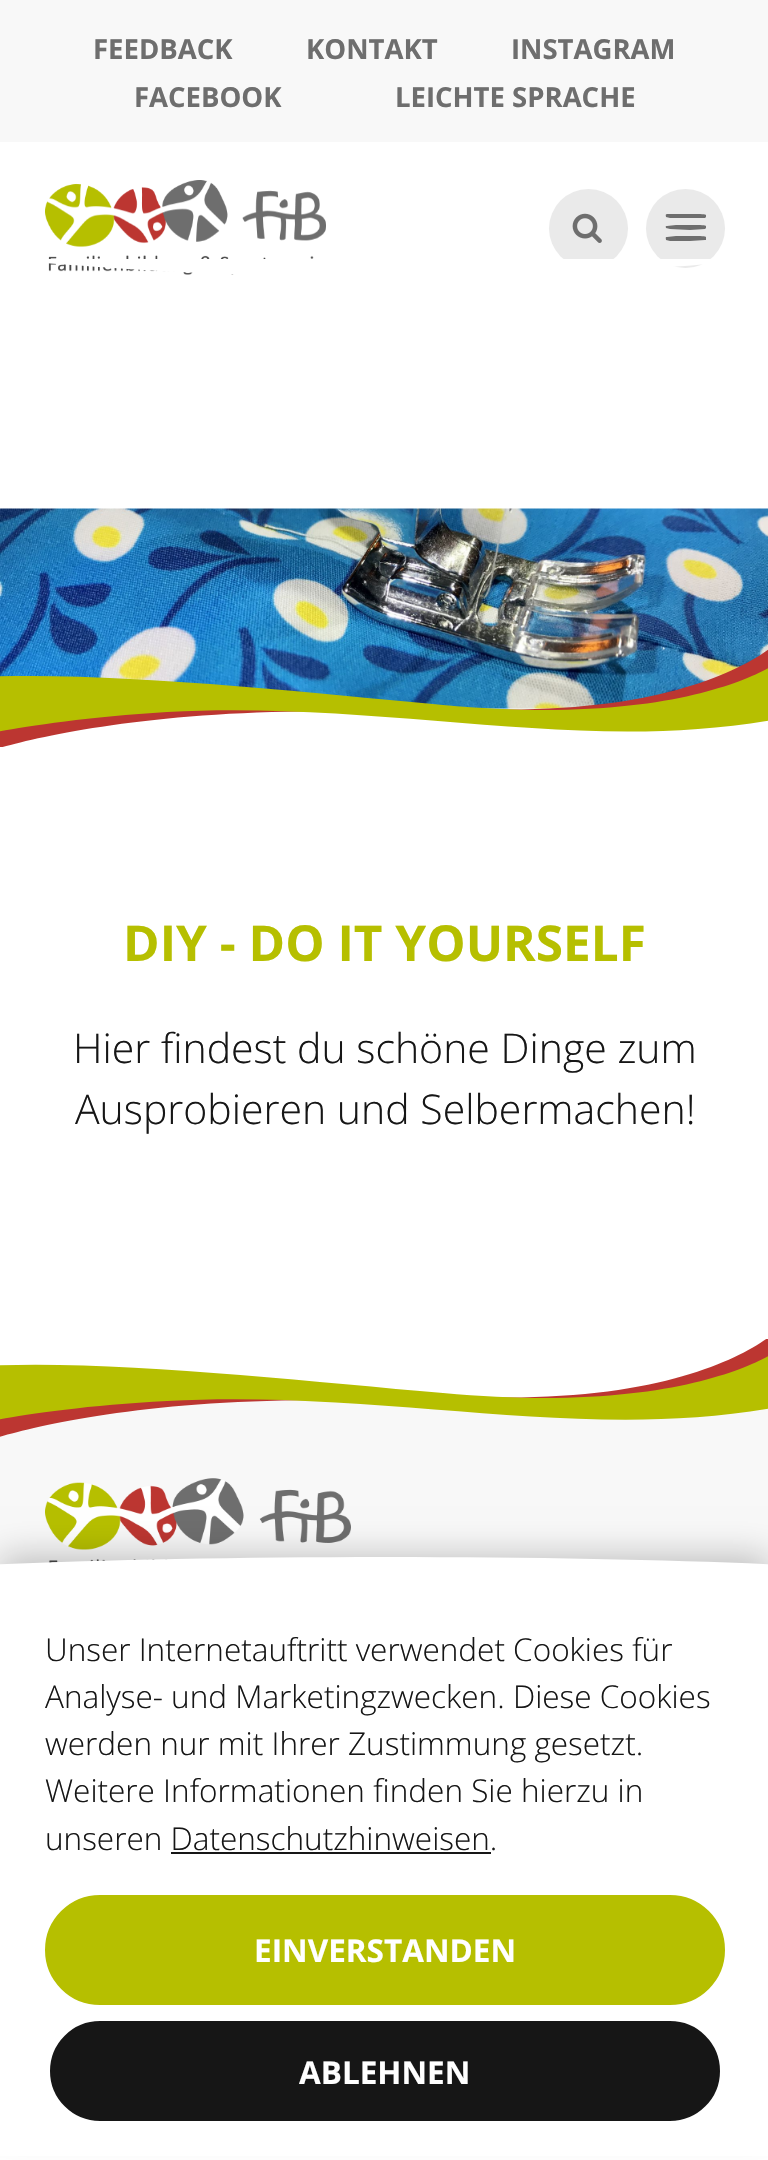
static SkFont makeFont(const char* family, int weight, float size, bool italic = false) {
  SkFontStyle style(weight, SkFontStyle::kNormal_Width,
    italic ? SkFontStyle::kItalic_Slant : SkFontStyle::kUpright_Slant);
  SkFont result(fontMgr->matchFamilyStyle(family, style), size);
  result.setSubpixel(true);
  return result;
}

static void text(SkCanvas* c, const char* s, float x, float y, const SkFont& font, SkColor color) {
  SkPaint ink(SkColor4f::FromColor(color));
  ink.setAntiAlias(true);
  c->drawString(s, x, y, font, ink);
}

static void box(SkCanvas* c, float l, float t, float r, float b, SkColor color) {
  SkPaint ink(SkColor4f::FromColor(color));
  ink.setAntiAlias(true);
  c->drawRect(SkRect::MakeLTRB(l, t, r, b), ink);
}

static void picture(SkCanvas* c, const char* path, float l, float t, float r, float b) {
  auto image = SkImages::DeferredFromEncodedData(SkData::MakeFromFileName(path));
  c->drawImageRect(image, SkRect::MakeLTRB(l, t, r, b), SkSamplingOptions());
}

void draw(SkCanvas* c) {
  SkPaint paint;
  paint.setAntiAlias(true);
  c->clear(0xffffffff);
  box(c, 0, 0, 768, 142, 0xfff8f8f8);
  SkFont face1 = makeFont("Open Sans", 700, 27.5f);
  text(c, "FEEDBACK", 93, 59, face1, 0xff6e6e6e);
  text(c, "KONTAKT", 306, 59, face1, 0xff6e6e6e);
  text(c, "INSTAGRAM", 511, 59, face1, 0xff6e6e6e);
  text(c, "FACEBOOK", 134, 107, face1, 0xff6e6e6e);
  text(c, "LEICHTE SPRACHE", 395, 107, face1, 0xff6e6e6e);
  picture(c, "img_01.png", 45, 180, 326, 275);
  paint.setColor(0xffeaeaea);
  c->drawCircle(588.5f, 228.5f, 39.5f, paint);
  picture(c, "img_02.png", 572, 213, 602, 243);
  c->drawCircle(685.5f, 228.5f, 39.5f, paint);
  paint.setColor(0xff6e6e6e);
  c->drawPath(SkPathBuilder().moveTo(676, 214).lineTo(693, 214).cubicTo(700, 214, 706, 214, 706, 215).lineTo(706, 217).lineTo(705, 218).lineTo(690, 218).lineTo(670, 218).lineTo(666, 217).cubicTo(666, 215, 665, 215, 667, 214).close().moveTo(676, 225).lineTo(693, 225).cubicTo(700, 225, 706, 225, 706, 226).lineTo(706, 228).lineTo(705, 229).lineTo(690, 230).lineTo(670, 229).lineTo(666, 228).cubicTo(666, 227, 665, 226, 667, 226).close().moveTo(676, 236).lineTo(693, 236).cubicTo(700, 236, 706, 236, 706, 237).lineTo(706, 240).lineTo(705, 240).lineTo(690, 241).lineTo(670, 241).lineTo(666, 240).cubicTo(666, 238, 665, 237, 667, 237).close().detach(), paint);
  c->save();
  c->clipRect(SkRect::MakeLTRB(0, 259, 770, 279));
  paint.setColor(0xffffffff);
  c->drawPath(SkPathBuilder(SkPathFillType::kEvenOdd).moveTo(0, -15).lineTo(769, -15).lineTo(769, 259).cubicTo(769, 259, 577, 278, 385, 278).cubicTo(193, 278, 0, 259, 0, 259).close().detach(), paint);
  c->restore();
  picture(c, "img_03.png", 0, 508, 768, 709);
  c->save();
  c->clipRect(SkRect::MakeLTRB(0, 648, 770, 747));
  paint.setColor(0xffbc3631);
  c->drawPath(SkPathBuilder(SkPathFillType::kEvenOdd).moveTo(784, 636).cubicTo(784, 636, 696, 741, 363, 700).cubicTo(132, 672, -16, 699, -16, 699).lineTo(-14, 752).cubicTo(-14, 752, 130, 702, 391, 713).cubicTo(598, 723, 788, 710, 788, 710).close().detach(), paint);
  c->restore();
  paint.setColor(0xffb6bf00);
  c->drawPath(SkPathBuilder(SkPathFillType::kEvenOdd).moveTo(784, 658).cubicTo(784, 658, 701, 729, 443, 705).cubicTo(304, 692, 108, 671, -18, 677).lineTo(-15, 734).cubicTo(-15, 734, 63, 718, 167, 712).cubicTo(392, 700, 588, 757, 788, 717).close().detach(), paint);
  SkFont face2 = makeFont("Open Sans", 700, 49.5f);
  text(c, "DIY - DO IT YOURSELF", 123, 961, face2, 0xffb6bf00);
  SkFont face3 = makeFont("Open Sans", 300, 41);
  text(c, "Hier findest du schöne Dinge zum", 73, 1063, face3, 0xff161616);
  text(c, "Ausprobieren und Selbermachen!", 75, 1124, face3, 0xff161616);
  box(c, 0, 1400, 768, 1565, 0xfff8f8f8);
  c->save();
  c->clipRect(SkRect::MakeLTRB(0, 1339, 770, 1438));
  paint.setColor(0xffbc3631);
  c->drawPath(SkPathBuilder(SkPathFillType::kEvenOdd).moveTo(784, 1324).cubicTo(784, 1324, 696, 1429, 363, 1388).cubicTo(132, 1360, -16, 1388, -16, 1388).lineTo(-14, 1441).cubicTo(-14, 1441, 130, 1390, 391, 1402).cubicTo(598, 1411, 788, 1399, 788, 1399).close().detach(), paint);
  c->restore();
  paint.setColor(0xffb6bf00);
  c->drawPath(SkPathBuilder(SkPathFillType::kEvenOdd).moveTo(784, 1346).cubicTo(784, 1346, 701, 1417, 443, 1393).cubicTo(304, 1381, 108, 1359, -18, 1366).lineTo(-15, 1422).cubicTo(-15, 1422, 63, 1406, 167, 1401).cubicTo(392, 1389, 588, 1445, 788, 1405).close().detach(), paint);
  picture(c, "img_04.png", 45, 1478, 351, 1563);
  paint.setColor(0x40000000);
  paint.setMaskFilter(SkMaskFilter::MakeBlur(kNormal_SkBlurStyle, 17));
  c->drawRect(SkRect::MakeLTRB(0, 1557, 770, 2126), paint);
  paint.setMaskFilter(nullptr);
  box(c, 0, 1613, 768, 2156, 0xffffffff);
  paint.setColor(0xffffffff);
  c->drawPath(SkPathBuilder().moveTo(386, 1557).cubicTo(705, 1557, 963, 1570, 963, 1585).lineTo(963, 1613).lineTo(-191, 1613).lineTo(-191, 1585).cubicTo(-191, 1570, 67, 1557, 386, 1557).close().detach(), paint);
  SkFont face4 = makeFont("Open Sans", 300, 31.5f);
  text(c, "Unser Internetauftritt verwendet Cookies für", 45, 1661, face4, 0xff161616);
  text(c, "Analyse- und Marketingzwecken. Diese Cookies", 45, 1708, face4, 0xff161616);
  text(c, "werden nur mit Ihrer Zustimmung gesetzt.", 45, 1755, face4, 0xff161616);
  text(c, "Weitere Informationen finden Sie hierzu in", 45, 1802, face4, 0xff161616);
  text(c, "unseren Datenschutzhinweisen.", 45, 1850, face4, 0xff161616);
  box(c, 171, 1852, 491, 1854, 0xff161616);
  paint.setColor(0xffb6bf00);
  c->drawRoundRect(SkRect::MakeLTRB(47.5f, 1897.5f, 722.5f, 2002.5f), 52.5f, 52.5f, paint);
  paint.setStyle(SkPaint::kStroke_Style);
  paint.setStrokeWidth(5);
  c->drawRoundRect(SkRect::MakeLTRB(47.5f, 1897.5f, 722.5f, 2002.5f), 52.5f, 52.5f, paint);
  SkFont face5 = makeFont("Open Sans", 700, 31.5f);
  text(c, "EINVERSTANDEN", 254, 1962, face5, 0xffffffff);
  paint.setStyle(SkPaint::kFill_Style);
  paint.setColor(0xff161616);
  c->drawRoundRect(SkRect::MakeLTRB(47.5f, 2018.5f, 722.5f, 2123.5f), 52.5f, 52.5f, paint);
  paint.setStyle(SkPaint::kStroke_Style);
  paint.setColor(0xffffffff);
  c->drawRoundRect(SkRect::MakeLTRB(47.5f, 2018.5f, 722.5f, 2123.5f), 52.5f, 52.5f, paint);
  text(c, "ABLEHNEN", 299, 2084, face5, 0xffffffff);
}
